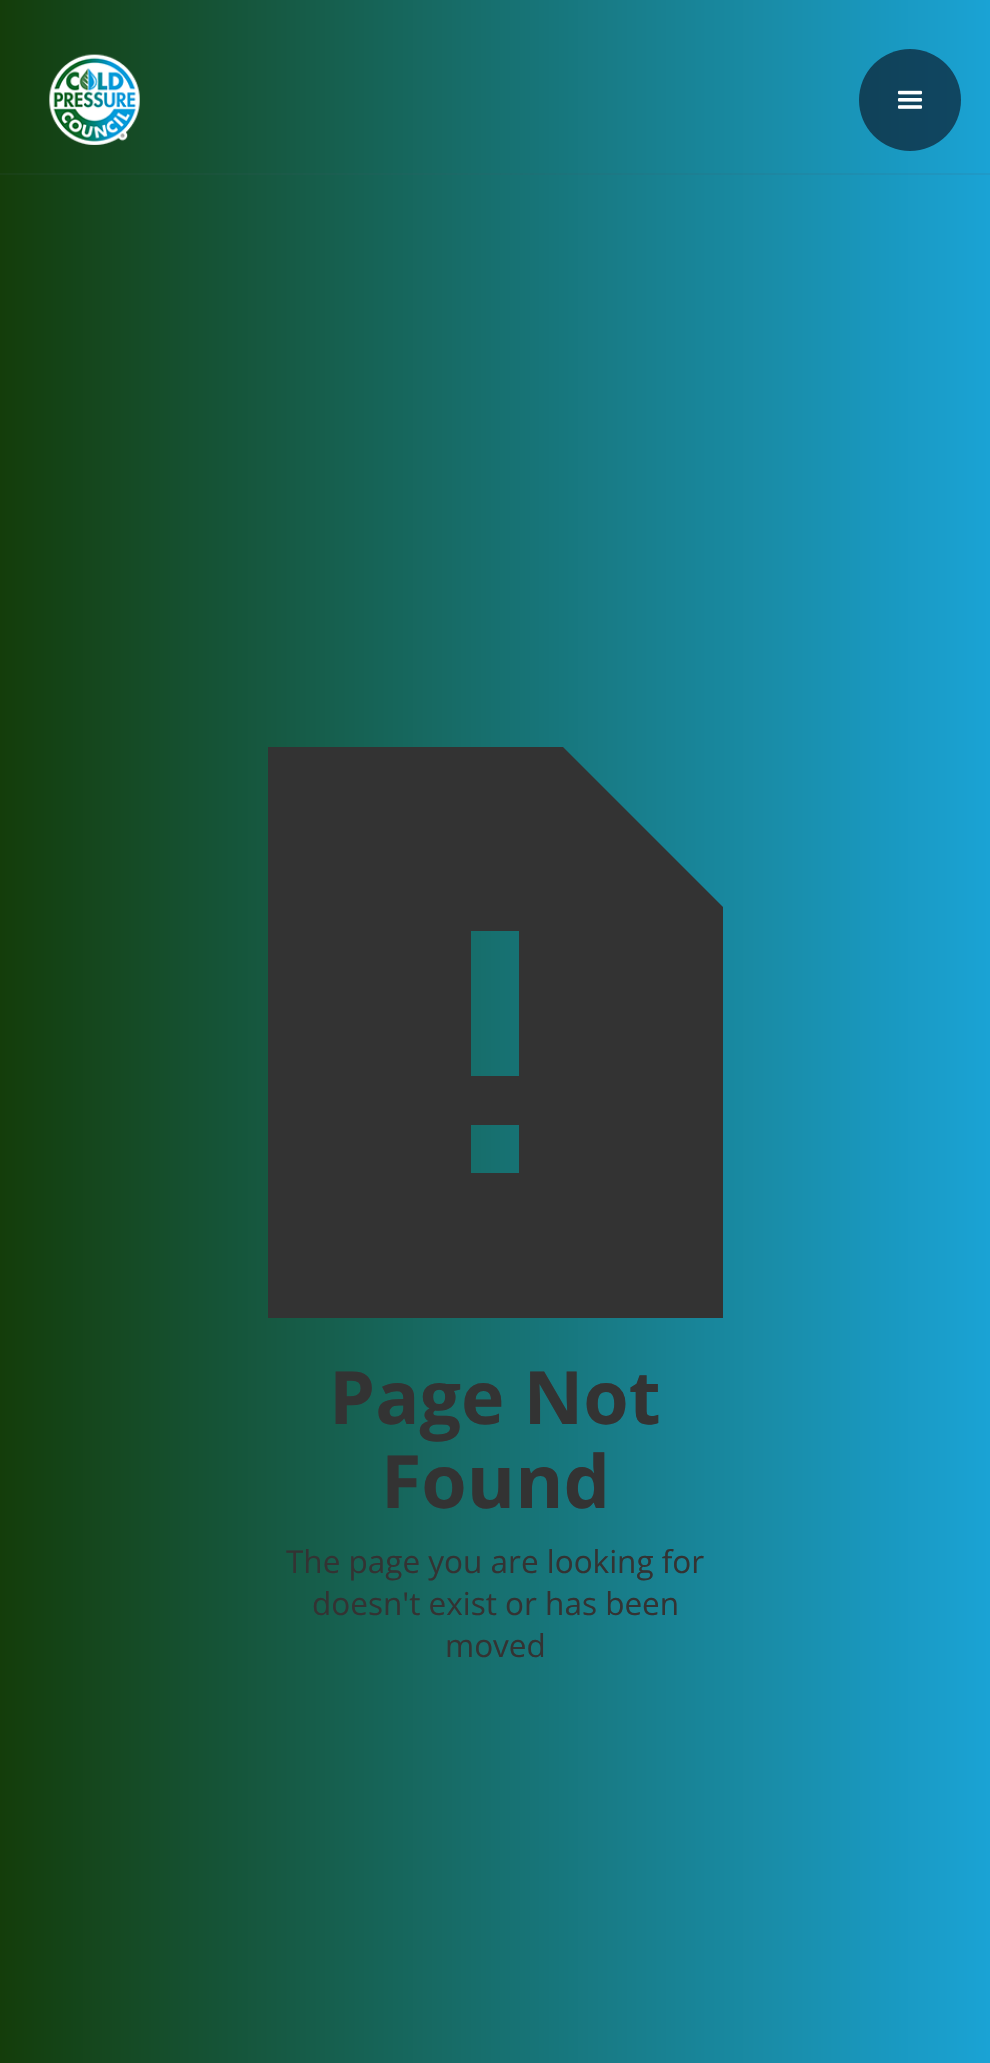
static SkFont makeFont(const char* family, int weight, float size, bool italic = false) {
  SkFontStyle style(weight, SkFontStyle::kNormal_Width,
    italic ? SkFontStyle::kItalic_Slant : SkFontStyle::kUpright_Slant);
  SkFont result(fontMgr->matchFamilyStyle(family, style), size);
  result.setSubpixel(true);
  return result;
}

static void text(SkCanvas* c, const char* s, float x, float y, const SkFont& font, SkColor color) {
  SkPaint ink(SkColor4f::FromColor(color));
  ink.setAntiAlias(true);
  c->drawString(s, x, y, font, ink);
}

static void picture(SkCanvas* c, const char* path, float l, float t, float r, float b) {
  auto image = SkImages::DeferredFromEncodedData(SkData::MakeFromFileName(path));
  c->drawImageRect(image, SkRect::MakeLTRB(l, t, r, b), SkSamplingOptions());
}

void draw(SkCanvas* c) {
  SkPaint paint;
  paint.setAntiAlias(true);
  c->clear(0xffffffff);
  {
    const SkColor colors[] = {0xff143d0a, 0xff1aa3d5};
    const float stops[] = {0, 1};
    const SkPoint ends[] = {{0, 1032}, {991, 1032}};
    paint.setShader(SkGradientShader::MakeLinear(ends, colors, stops, 2, SkTileMode::kClamp));
    paint.setAlpha(255);
  }
  c->drawRect(SkRect::MakeLTRB(0, 0, 990, 2063), paint);
  {
    const SkColor colors[] = {0xff194014, 0xff1f9ac9};
    const float stops[] = {0, 1};
    const SkPoint ends[] = {{0, 1032}, {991, 1032}};
    paint.setShader(SkGradientShader::MakeLinear(ends, colors, stops, 2, SkTileMode::kClamp));
    paint.setAlpha(255);
  }
  c->drawRect(SkRect::MakeLTRB(0, 173, 990, 175), paint);
  picture(c, "img_01.png", 49, 54, 140, 145);
  paint.setShader(nullptr);
  paint.setColor(0x96080614);
  c->drawCircle(910, 100, 51, paint);
  picture(c, "img_02.png", 897, 90, 923, 109);
  paint.setColor(0xff333333);
  c->drawPath(SkPathBuilder(SkPathFillType::kEvenOdd).moveTo(268, 747).lineTo(563, 747).lineTo(723, 907).lineTo(723, 1318).lineTo(268, 1318).close().moveTo(471, 931).lineTo(519, 931).lineTo(519, 1076).lineTo(471, 1076).close().moveTo(471, 1125).lineTo(519, 1125).lineTo(519, 1173).lineTo(471, 1173).close().detach(), paint);
  SkFont face1 = makeFont("Open Sans", 700, 73.5f);
  text(c, "Page Not", 329, 1424, face1, 0xff333333);
  text(c, "Found", 381, 1508, face1, 0xff333333);
  SkFont face2 = makeFont("Open Sans", 400, 31.5f);
  text(c, "The page you are looking for", 286, 1573, face2, 0xff333333);
  text(c, "doesn't exist or has been", 312, 1615, face2, 0xff333333);
  text(c, "moved", 445, 1657, face2, 0xff333333);
}
